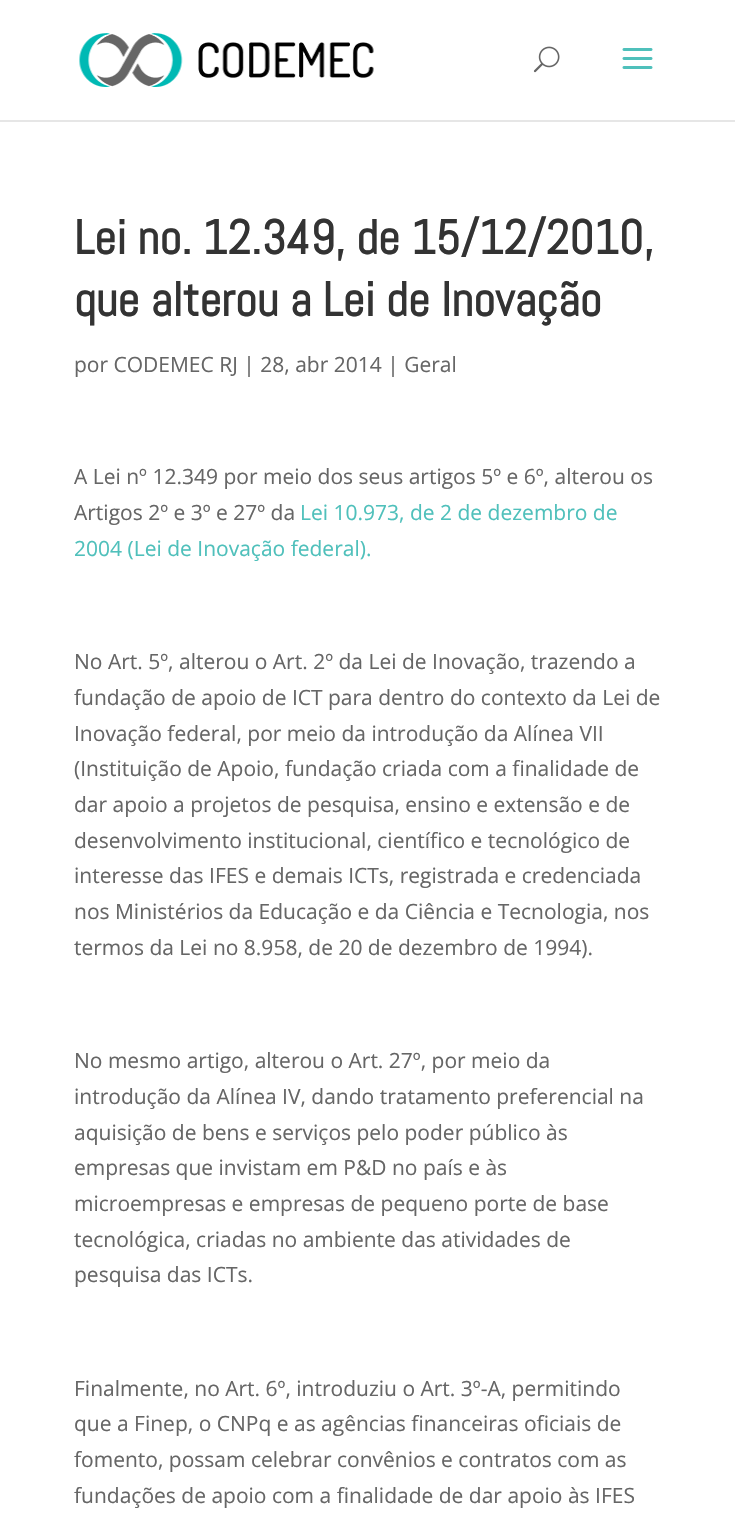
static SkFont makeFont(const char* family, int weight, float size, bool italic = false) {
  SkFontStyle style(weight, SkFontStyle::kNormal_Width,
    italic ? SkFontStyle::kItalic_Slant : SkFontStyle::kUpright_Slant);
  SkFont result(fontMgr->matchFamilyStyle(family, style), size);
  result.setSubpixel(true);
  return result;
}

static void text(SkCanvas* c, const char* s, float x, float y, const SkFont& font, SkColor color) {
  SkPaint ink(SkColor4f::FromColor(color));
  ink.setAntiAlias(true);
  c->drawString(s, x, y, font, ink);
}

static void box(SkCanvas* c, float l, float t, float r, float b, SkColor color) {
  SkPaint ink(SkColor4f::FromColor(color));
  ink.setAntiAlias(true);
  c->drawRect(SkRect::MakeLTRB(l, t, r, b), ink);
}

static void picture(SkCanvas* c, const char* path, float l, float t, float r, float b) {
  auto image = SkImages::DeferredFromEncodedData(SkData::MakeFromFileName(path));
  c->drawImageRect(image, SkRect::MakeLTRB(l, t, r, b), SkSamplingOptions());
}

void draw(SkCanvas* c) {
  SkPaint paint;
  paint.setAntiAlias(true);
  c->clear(0xffffffff);
  box(c, 0, 120, 735, 122, 0xffe6e6e6);
  picture(c, "img_01.png", 79, 33, 374, 87);
  picture(c, "img_02.png", 533, 46, 560, 73);
  picture(c, "img_03.png", 622, 48, 653, 69);
  SkFont face1 = makeFont("Abel", 700, 48);
  text(c, "Lei no. 12.349, de 15/12/2010,", 74, 254, face1, 0xff333333);
  text(c, "que alterou a Lei de Inovação", 74, 316, face1, 0xff333333);
  SkFont face2 = makeFont("Open Sans", 400, 21);
  text(c, "por CODEMEC RJ | 28, abr 2014 | Geral", 74, 372, face2, 0xff666666);
  text(c, "A Lei nº 12.349 por meio dos seus artigos 5º e 6º, alterou os", 74, 484, face2, 0xff666666);
  text(c, "Artigos 2º e 3º e 27º da", 74, 520, face2, 0xff666666);
  text(c, "Lei 10.973, de 2 de dezembro de", 300, 520, face2, 0xff4fc0bb);
  text(c, "2004 (Lei de Inovação federal).", 74, 556, face2, 0xff4fc0bb);
  text(c, "No Art. 5º, alterou o Art. 2º da Lei de Inovação, trazendo a", 74, 669, face2, 0xff666666);
  text(c, "fundação de apoio de ICT para dentro do contexto da Lei de", 74, 705, face2, 0xff666666);
  text(c, "Inovação federal, por meio da introdução da Alínea VII", 74, 741, face2, 0xff666666);
  text(c, "(Instituição de Apoio, fundação criada com a finalidade de", 74, 776, face2, 0xff666666);
  text(c, "dar apoio a projetos de pesquisa, ensino e extensão e de", 74, 812, face2, 0xff666666);
  text(c, "desenvolvimento institucional, científico e tecnológico de", 74, 848, face2, 0xff666666);
  text(c, "interesse das IFES e demais ICTs, registrada e credenciada", 74, 883, face2, 0xff666666);
  text(c, "nos Ministérios da Educação e da Ciência e Tecnologia, nos", 74, 919, face2, 0xff666666);
  text(c, "termos da Lei no 8.958, de 20 de dezembro de 1994).", 74, 955, face2, 0xff666666);
  text(c, "No mesmo artigo, alterou o Art. 27º, por meio da", 74, 1068, face2, 0xff666666);
  text(c, "introdução da Alínea IV, dando tratamento preferencial na", 74, 1104, face2, 0xff666666);
  text(c, "aquisição de bens e serviços pelo poder público às", 74, 1140, face2, 0xff666666);
  text(c, "empresas que invistam em P&D no país e às", 74, 1175, face2, 0xff666666);
  text(c, "microempresas e empresas de pequeno porte de base", 74, 1211, face2, 0xff666666);
  text(c, "tecnológica, criadas no ambiente das atividades de", 74, 1247, face2, 0xff666666);
  text(c, "pesquisa das ICTs.", 74, 1282, face2, 0xff666666);
  text(c, "Finalmente, no Art. 6º, introduziu o Art. 3º-A, permitindo", 74, 1396, face2, 0xff666666);
  text(c, "que a Finep, o CNPq e as agências financeiras oficiais de", 74, 1431, face2, 0xff666666);
  text(c, "fomento, possam celebrar convênios e contratos com as", 74, 1467, face2, 0xff666666);
  text(c, "fundações de apoio com a finalidade de dar apoio às IFES", 74, 1503, face2, 0xff666666);
}
